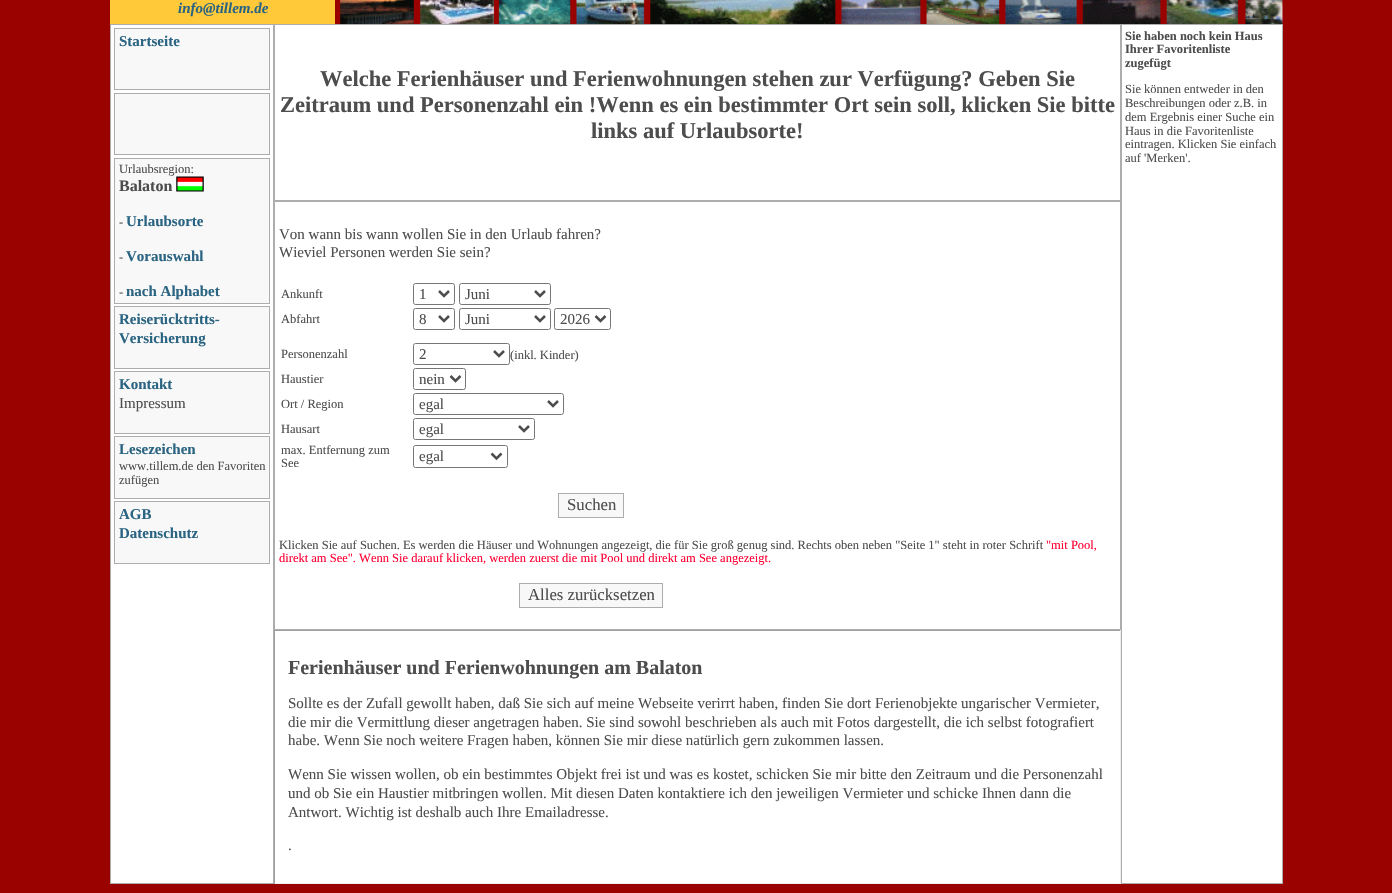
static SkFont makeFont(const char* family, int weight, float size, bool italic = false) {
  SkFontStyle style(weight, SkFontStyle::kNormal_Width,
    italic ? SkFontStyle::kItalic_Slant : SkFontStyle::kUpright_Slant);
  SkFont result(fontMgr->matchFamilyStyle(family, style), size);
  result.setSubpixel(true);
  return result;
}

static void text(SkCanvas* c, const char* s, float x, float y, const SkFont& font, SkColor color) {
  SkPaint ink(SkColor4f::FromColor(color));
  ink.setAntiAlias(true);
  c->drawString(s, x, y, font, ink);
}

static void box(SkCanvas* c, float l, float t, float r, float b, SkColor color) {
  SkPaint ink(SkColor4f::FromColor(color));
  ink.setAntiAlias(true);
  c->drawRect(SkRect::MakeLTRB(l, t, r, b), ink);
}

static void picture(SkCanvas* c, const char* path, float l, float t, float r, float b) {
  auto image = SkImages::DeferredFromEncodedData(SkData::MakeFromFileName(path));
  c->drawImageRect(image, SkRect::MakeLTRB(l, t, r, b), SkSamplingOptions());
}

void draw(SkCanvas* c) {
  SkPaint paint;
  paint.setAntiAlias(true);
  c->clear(0xff9a0200);
  picture(c, "img_01.png", 340, 0, 1283, 24);
  box(c, 110, 0, 335, 24, 0xffffc939);
  SkFont face1 = makeFont("Liberation Serif", 700, 15, true);
  text(c, "info@tillem.de", 178, 13, face1, 0xff2a6482);
  paint.setColor(0xffffffff);
  c->drawRect(SkRect::MakeLTRB(110.5f, 24.5f, 273.5f, 883.5f), paint);
  paint.setStyle(SkPaint::kStroke_Style);
  paint.setStrokeWidth(1);
  paint.setColor(0xffadadad);
  c->drawRect(SkRect::MakeLTRB(110.5f, 24.5f, 273.5f, 883.5f), paint);
  paint.setStyle(SkPaint::kFill_Style);
  paint.setColor(0xfff8f8f8);
  c->drawRect(SkRect::MakeLTRB(114.5f, 28.5f, 269.5f, 89.5f), paint);
  paint.setStyle(SkPaint::kStroke_Style);
  paint.setColor(0xffadadad);
  c->drawRect(SkRect::MakeLTRB(114.5f, 28.5f, 269.5f, 89.5f), paint);
  SkFont face2 = makeFont("Liberation Serif", 700, 15);
  text(c, "Startseite", 119, 46, face2, 0xff2a6482);
  paint.setStyle(SkPaint::kFill_Style);
  paint.setColor(0xfff8f8f8);
  c->drawRect(SkRect::MakeLTRB(114.5f, 93.5f, 269.5f, 154.5f), paint);
  paint.setStyle(SkPaint::kStroke_Style);
  paint.setColor(0xffadadad);
  c->drawRect(SkRect::MakeLTRB(114.5f, 93.5f, 269.5f, 154.5f), paint);
  paint.setStyle(SkPaint::kFill_Style);
  paint.setColor(0xfff8f8f8);
  c->drawRect(SkRect::MakeLTRB(114.5f, 158.5f, 269.5f, 303.5f), paint);
  paint.setStyle(SkPaint::kStroke_Style);
  paint.setColor(0xffadadad);
  c->drawRect(SkRect::MakeLTRB(114.5f, 158.5f, 269.5f, 303.5f), paint);
  SkFont face3 = makeFont("Liberation Serif", 400, 12.5f);
  text(c, "Urlaubsregion:", 119, 173, face3, 0xff4d4d4d);
  SkFont face4 = makeFont("Liberation Serif", 700, 16);
  text(c, "Balaton", 119, 191, face4, 0xff4d4d4d);
  picture(c, "img_02.png", 176, 176, 204, 192);
  text(c, "-", 119, 226, face3, 0xff4d4d4d);
  text(c, "Urlaubsorte", 126, 226, face2, 0xff2a6482);
  text(c, "-", 119, 261, face3, 0xff4d4d4d);
  text(c, "Vorauswahl", 126, 261, face2, 0xff2a6482);
  text(c, "-", 119, 296, face3, 0xff4d4d4d);
  text(c, "nach Alphabet", 126, 296, face2, 0xff2a6482);
  paint.setStyle(SkPaint::kFill_Style);
  paint.setColor(0xfff8f8f8);
  c->drawRect(SkRect::MakeLTRB(114.5f, 306.5f, 269.5f, 368.5f), paint);
  paint.setStyle(SkPaint::kStroke_Style);
  paint.setColor(0xffadadad);
  c->drawRect(SkRect::MakeLTRB(114.5f, 306.5f, 269.5f, 368.5f), paint);
  text(c, "Reiserücktritts-", 119, 324, face2, 0xff2a6482);
  text(c, "Versicherung", 119, 343, face2, 0xff2a6482);
  paint.setStyle(SkPaint::kFill_Style);
  paint.setColor(0xfff8f8f8);
  c->drawRect(SkRect::MakeLTRB(114.5f, 371.5f, 269.5f, 433.5f), paint);
  paint.setStyle(SkPaint::kStroke_Style);
  paint.setColor(0xffadadad);
  c->drawRect(SkRect::MakeLTRB(114.5f, 371.5f, 269.5f, 433.5f), paint);
  text(c, "Kontakt", 119, 389, face2, 0xff2a6482);
  SkFont face5 = makeFont("Liberation Serif", 400, 15);
  text(c, "Impressum", 119, 408, face5, 0xff4d4d4d);
  paint.setStyle(SkPaint::kFill_Style);
  paint.setColor(0xfff8f8f8);
  c->drawRect(SkRect::MakeLTRB(114.5f, 436.5f, 269.5f, 498.5f), paint);
  paint.setStyle(SkPaint::kStroke_Style);
  paint.setColor(0xffadadad);
  c->drawRect(SkRect::MakeLTRB(114.5f, 436.5f, 269.5f, 498.5f), paint);
  text(c, "Lesezeichen", 119, 454, face2, 0xff2a6482);
  text(c, "www.tillem.de den Favoriten", 119, 470, face3, 0xff4d4d4d);
  text(c, "zufügen", 119, 484, face3, 0xff4d4d4d);
  paint.setStyle(SkPaint::kFill_Style);
  paint.setColor(0xfff8f8f8);
  c->drawRect(SkRect::MakeLTRB(114.5f, 501.5f, 269.5f, 563.5f), paint);
  paint.setStyle(SkPaint::kStroke_Style);
  paint.setColor(0xffadadad);
  c->drawRect(SkRect::MakeLTRB(114.5f, 501.5f, 269.5f, 563.5f), paint);
  text(c, "AGB", 119, 519, face2, 0xff2a6482);
  text(c, "Datenschutz", 119, 538, face2, 0xff2a6482);
  paint.setStyle(SkPaint::kFill_Style);
  paint.setColor(0xffffffff);
  c->drawRect(SkRect::MakeLTRB(274.5f, 24.5f, 1120.5f, 200.5f), paint);
  paint.setStyle(SkPaint::kStroke_Style);
  paint.setColor(0xffadadad);
  c->drawRect(SkRect::MakeLTRB(274.5f, 24.5f, 1120.5f, 200.5f), paint);
  SkFont face6 = makeFont("Liberation Serif", 700, 22.5f);
  text(c, "Welche Ferienhäuser und Ferienwohnungen stehen zur Verfügung? Geben Sie", 320, 86, face6, 0xff4d4d4d);
  text(c, "Zeitraum und Personenzahl ein !Wenn es ein bestimmter Ort sein soll, klicken Sie bitte", 280, 112, face6, 0xff4d4d4d);
  text(c, "links auf Urlaubsorte!", 591, 138, face6, 0xff4d4d4d);
  paint.setStyle(SkPaint::kFill_Style);
  paint.setColor(0xffffffff);
  c->drawRect(SkRect::MakeLTRB(1121.5f, 24.5f, 1282.5f, 883.5f), paint);
  paint.setStyle(SkPaint::kStroke_Style);
  paint.setColor(0xffadadad);
  c->drawRect(SkRect::MakeLTRB(1121.5f, 24.5f, 1282.5f, 883.5f), paint);
  SkFont face7 = makeFont("Liberation Serif", 700, 12.5f);
  text(c, "Sie haben noch kein Haus", 1125, 40, face7, 0xff4d4d4d);
  text(c, "Ihrer Favoritenliste", 1125, 53, face7, 0xff4d4d4d);
  text(c, "zugefügt", 1125, 67, face7, 0xff4d4d4d);
  text(c, "Sie können entweder in den", 1125, 93, face3, 0xff4d4d4d);
  text(c, "Beschreibungen oder z.B. in", 1125, 107, face3, 0xff4d4d4d);
  text(c, "dem Ergebnis einer Suche ein", 1125, 121, face3, 0xff4d4d4d);
  text(c, "Haus in die Favoritenliste", 1125, 135, face3, 0xff4d4d4d);
  text(c, "eintragen. Klicken Sie einfach", 1125, 148, face3, 0xff4d4d4d);
  text(c, "auf 'Merken'.", 1125, 162, face3, 0xff4d4d4d);
  paint.setStyle(SkPaint::kFill_Style);
  paint.setColor(0xffffffff);
  c->drawRect(SkRect::MakeLTRB(274.5f, 201.5f, 1120.5f, 629.5f), paint);
  paint.setStyle(SkPaint::kStroke_Style);
  paint.setColor(0xffadadad);
  c->drawRect(SkRect::MakeLTRB(274.5f, 201.5f, 1120.5f, 629.5f), paint);
  text(c, "Von wann bis wann wollen Sie in den Urlaub fahren?", 279, 239, face5, 0xff4d4d4d);
  text(c, "Wieviel Personen werden Sie sein?", 279, 257, face5, 0xff4d4d4d);
  text(c, "Ankunft", 281, 298, face3, 0xff4d4d4d);
  paint.setColor(0xff767676);
  c->drawRoundRect(SkRect::MakeLTRB(413.5f, 283.5f, 454.5f, 304.5f), 2, 2, paint);
  paint.setStrokeWidth(2.5f);
  paint.setColor(0xff4d4d4d);
  c->drawPath(SkPathBuilder().moveTo(439, 291).lineTo(444, 296).lineTo(449, 291).detach(), paint);
  text(c, "1", 419, 299, face5, 0xff4d4d4d);
  paint.setStrokeWidth(1);
  paint.setColor(0xff767676);
  c->drawRoundRect(SkRect::MakeLTRB(459.5f, 283.5f, 550.5f, 304.5f), 2, 2, paint);
  paint.setStrokeWidth(2.5f);
  paint.setColor(0xff4d4d4d);
  c->drawPath(SkPathBuilder().moveTo(535, 291).lineTo(540, 296).lineTo(545, 291).detach(), paint);
  text(c, "Juni", 465, 299, face5, 0xff4d4d4d);
  text(c, "Abfahrt", 281, 323, face3, 0xff4d4d4d);
  paint.setStrokeWidth(1);
  paint.setColor(0xff767676);
  c->drawRoundRect(SkRect::MakeLTRB(413.5f, 308.5f, 454.5f, 329.5f), 2, 2, paint);
  paint.setStrokeWidth(2.5f);
  paint.setColor(0xff4d4d4d);
  c->drawPath(SkPathBuilder().moveTo(439, 316).lineTo(444, 321).lineTo(449, 316).detach(), paint);
  text(c, "8", 419, 324, face5, 0xff4d4d4d);
  paint.setStrokeWidth(1);
  paint.setColor(0xff767676);
  c->drawRoundRect(SkRect::MakeLTRB(459.5f, 308.5f, 550.5f, 329.5f), 2, 2, paint);
  paint.setStrokeWidth(2.5f);
  paint.setColor(0xff4d4d4d);
  c->drawPath(SkPathBuilder().moveTo(535, 316).lineTo(540, 321).lineTo(545, 316).detach(), paint);
  text(c, "Juni", 465, 324, face5, 0xff4d4d4d);
  paint.setStrokeWidth(1);
  paint.setColor(0xff767676);
  c->drawRoundRect(SkRect::MakeLTRB(554.5f, 308.5f, 610.5f, 329.5f), 2, 2, paint);
  paint.setStrokeWidth(2.5f);
  paint.setColor(0xff4d4d4d);
  c->drawPath(SkPathBuilder().moveTo(595.5f, 316).lineTo(600.5f, 321).lineTo(605.5f, 316).detach(), paint);
  text(c, "2026", 560, 324, face5, 0xff4d4d4d);
  text(c, "Personenzahl", 281, 358, face3, 0xff4d4d4d);
  paint.setStrokeWidth(1);
  paint.setColor(0xff767676);
  c->drawRoundRect(SkRect::MakeLTRB(413.5f, 343.5f, 509.5f, 364.5f), 2, 2, paint);
  paint.setStrokeWidth(2.5f);
  paint.setColor(0xff4d4d4d);
  c->drawPath(SkPathBuilder().moveTo(494, 351).lineTo(499, 356).lineTo(504, 351).detach(), paint);
  text(c, "2", 419, 359, face5, 0xff4d4d4d);
  text(c, "(inkl. Kinder)", 510, 359, face3, 0xff4d4d4d);
  text(c, "Haustier", 281, 383, face3, 0xff4d4d4d);
  paint.setStrokeWidth(1);
  paint.setColor(0xff767676);
  c->drawRoundRect(SkRect::MakeLTRB(413.5f, 368.5f, 465.5f, 389.5f), 2, 2, paint);
  paint.setStrokeWidth(2.5f);
  paint.setColor(0xff4d4d4d);
  c->drawPath(SkPathBuilder().moveTo(450.5f, 376).lineTo(455.5f, 381).lineTo(460.5f, 376).detach(), paint);
  text(c, "nein", 419, 384, face5, 0xff4d4d4d);
  text(c, "Ort / Region", 281, 408, face3, 0xff4d4d4d);
  paint.setStrokeWidth(1);
  paint.setColor(0xff767676);
  c->drawRoundRect(SkRect::MakeLTRB(413.5f, 393.5f, 563.5f, 414.5f), 2, 2, paint);
  paint.setStrokeWidth(2.5f);
  paint.setColor(0xff4d4d4d);
  c->drawPath(SkPathBuilder().moveTo(548, 401).lineTo(553, 406).lineTo(558, 401).detach(), paint);
  text(c, "egal", 419, 409, face5, 0xff4d4d4d);
  text(c, "Hausart", 281, 433, face3, 0xff4d4d4d);
  paint.setStrokeWidth(1);
  paint.setColor(0xff767676);
  c->drawRoundRect(SkRect::MakeLTRB(413.5f, 418.5f, 534.5f, 439.5f), 2, 2, paint);
  paint.setStrokeWidth(2.5f);
  paint.setColor(0xff4d4d4d);
  c->drawPath(SkPathBuilder().moveTo(519, 426).lineTo(524, 431).lineTo(529, 426).detach(), paint);
  text(c, "egal", 419, 434, face5, 0xff4d4d4d);
  text(c, "max. Entfernung zum", 281, 454, face3, 0xff4d4d4d);
  text(c, "See", 281, 467, face3, 0xff4d4d4d);
  paint.setStrokeWidth(1);
  paint.setColor(0xff767676);
  c->drawRoundRect(SkRect::MakeLTRB(413.5f, 445.5f, 507.5f, 467.5f), 2, 2, paint);
  paint.setStrokeWidth(2.5f);
  paint.setColor(0xff4d4d4d);
  c->drawPath(SkPathBuilder().moveTo(491.5f, 453.5f).lineTo(496.5f, 458.5f).lineTo(501.5f, 453.5f).detach(), paint);
  text(c, "egal", 419, 461, face5, 0xff4d4d4d);
  paint.setStyle(SkPaint::kFill_Style);
  paint.setColor(0xfff8f8f8);
  c->drawRect(SkRect::MakeLTRB(558.5f, 493.5f, 623.5f, 517.5f), paint);
  paint.setStyle(SkPaint::kStroke_Style);
  paint.setStrokeWidth(1);
  paint.setColor(0xffadadad);
  c->drawRect(SkRect::MakeLTRB(558.5f, 493.5f, 623.5f, 517.5f), paint);
  SkFont face8 = makeFont("Liberation Serif", 400, 16.75f);
  text(c, "Suchen", 567, 510, face8, 0xff4d4d4d);
  text(c, "Klicken Sie auf Suchen. Es werden die Häuser und Wohnungen angezeigt, die für Sie groß genug sind. Rechts oben neben \"Seite 1\" steht in roter Schrift", 279, 549, face3, 0xff4d4d4d);
  text(c, "\"mit Pool,", 1046, 549, face3, 0xffff0033);
  text(c, "direkt am See\". Wenn Sie darauf klicken, werden zuerst die mit Pool und direkt am See angezeigt.", 279, 562, face3, 0xffff0033);
  paint.setStyle(SkPaint::kFill_Style);
  paint.setColor(0xfff8f8f8);
  c->drawRect(SkRect::MakeLTRB(519.5f, 583.5f, 662.5f, 607.5f), paint);
  paint.setStyle(SkPaint::kStroke_Style);
  paint.setColor(0xffadadad);
  c->drawRect(SkRect::MakeLTRB(519.5f, 583.5f, 662.5f, 607.5f), paint);
  text(c, "Alles zurücksetzen", 528, 600, face8, 0xff4d4d4d);
  box(c, 275, 631, 1120, 883, 0xffffffff);
  box(c, 274, 630, 1121, 631, 0xff9f9f9f);
  box(c, 1120, 630, 1121, 884, 0xffeeeeee);
  box(c, 274, 883, 1121, 884, 0xffeeeeee);
  box(c, 274, 630, 275, 884, 0xff9f9f9f);
  SkFont face9 = makeFont("Liberation Serif", 700, 20);
  text(c, "Ferienhäuser und Ferienwohnungen am Balaton", 288, 674, face9, 0xff4d4d4d);
  text(c, "Sollte es der Zufall gewollt haben, daß Sie sich auf meine Webseite verirrt haben, finden Sie dort Ferienobjekte ungarischer Vermieter,", 288, 708, face5, 0xff4d4d4d);
  text(c, "die mir die Vermittlung dieser angetragen haben. Sie sind sowohl beschrieben als auch mit Fotos dargestellt, die ich selbst fotografiert", 288, 727, face5, 0xff4d4d4d);
  text(c, "habe. Wenn Sie noch weitere Fragen haben, können Sie mir diese natürlich gern zukommen lassen.", 288, 745, face5, 0xff4d4d4d);
  text(c, "Wenn Sie wissen wollen, ob ein bestimmtes Objekt frei ist und was es kostet, schicken Sie mir bitte den Zeitraum und die Personenzahl", 288, 779, face5, 0xff4d4d4d);
  text(c, "und ob Sie ein Haustier mitbringen wollen. Mit diesen Daten kontaktiere ich den jeweiligen Vermieter und schicke Ihnen dann die", 288, 798, face5, 0xff4d4d4d);
  text(c, "Antwort. Wichtig ist deshalb auch Ihre Emailadresse.", 288, 817, face5, 0xff4d4d4d);
  text(c, ".", 288, 850, face5, 0xff4d4d4d);
}
